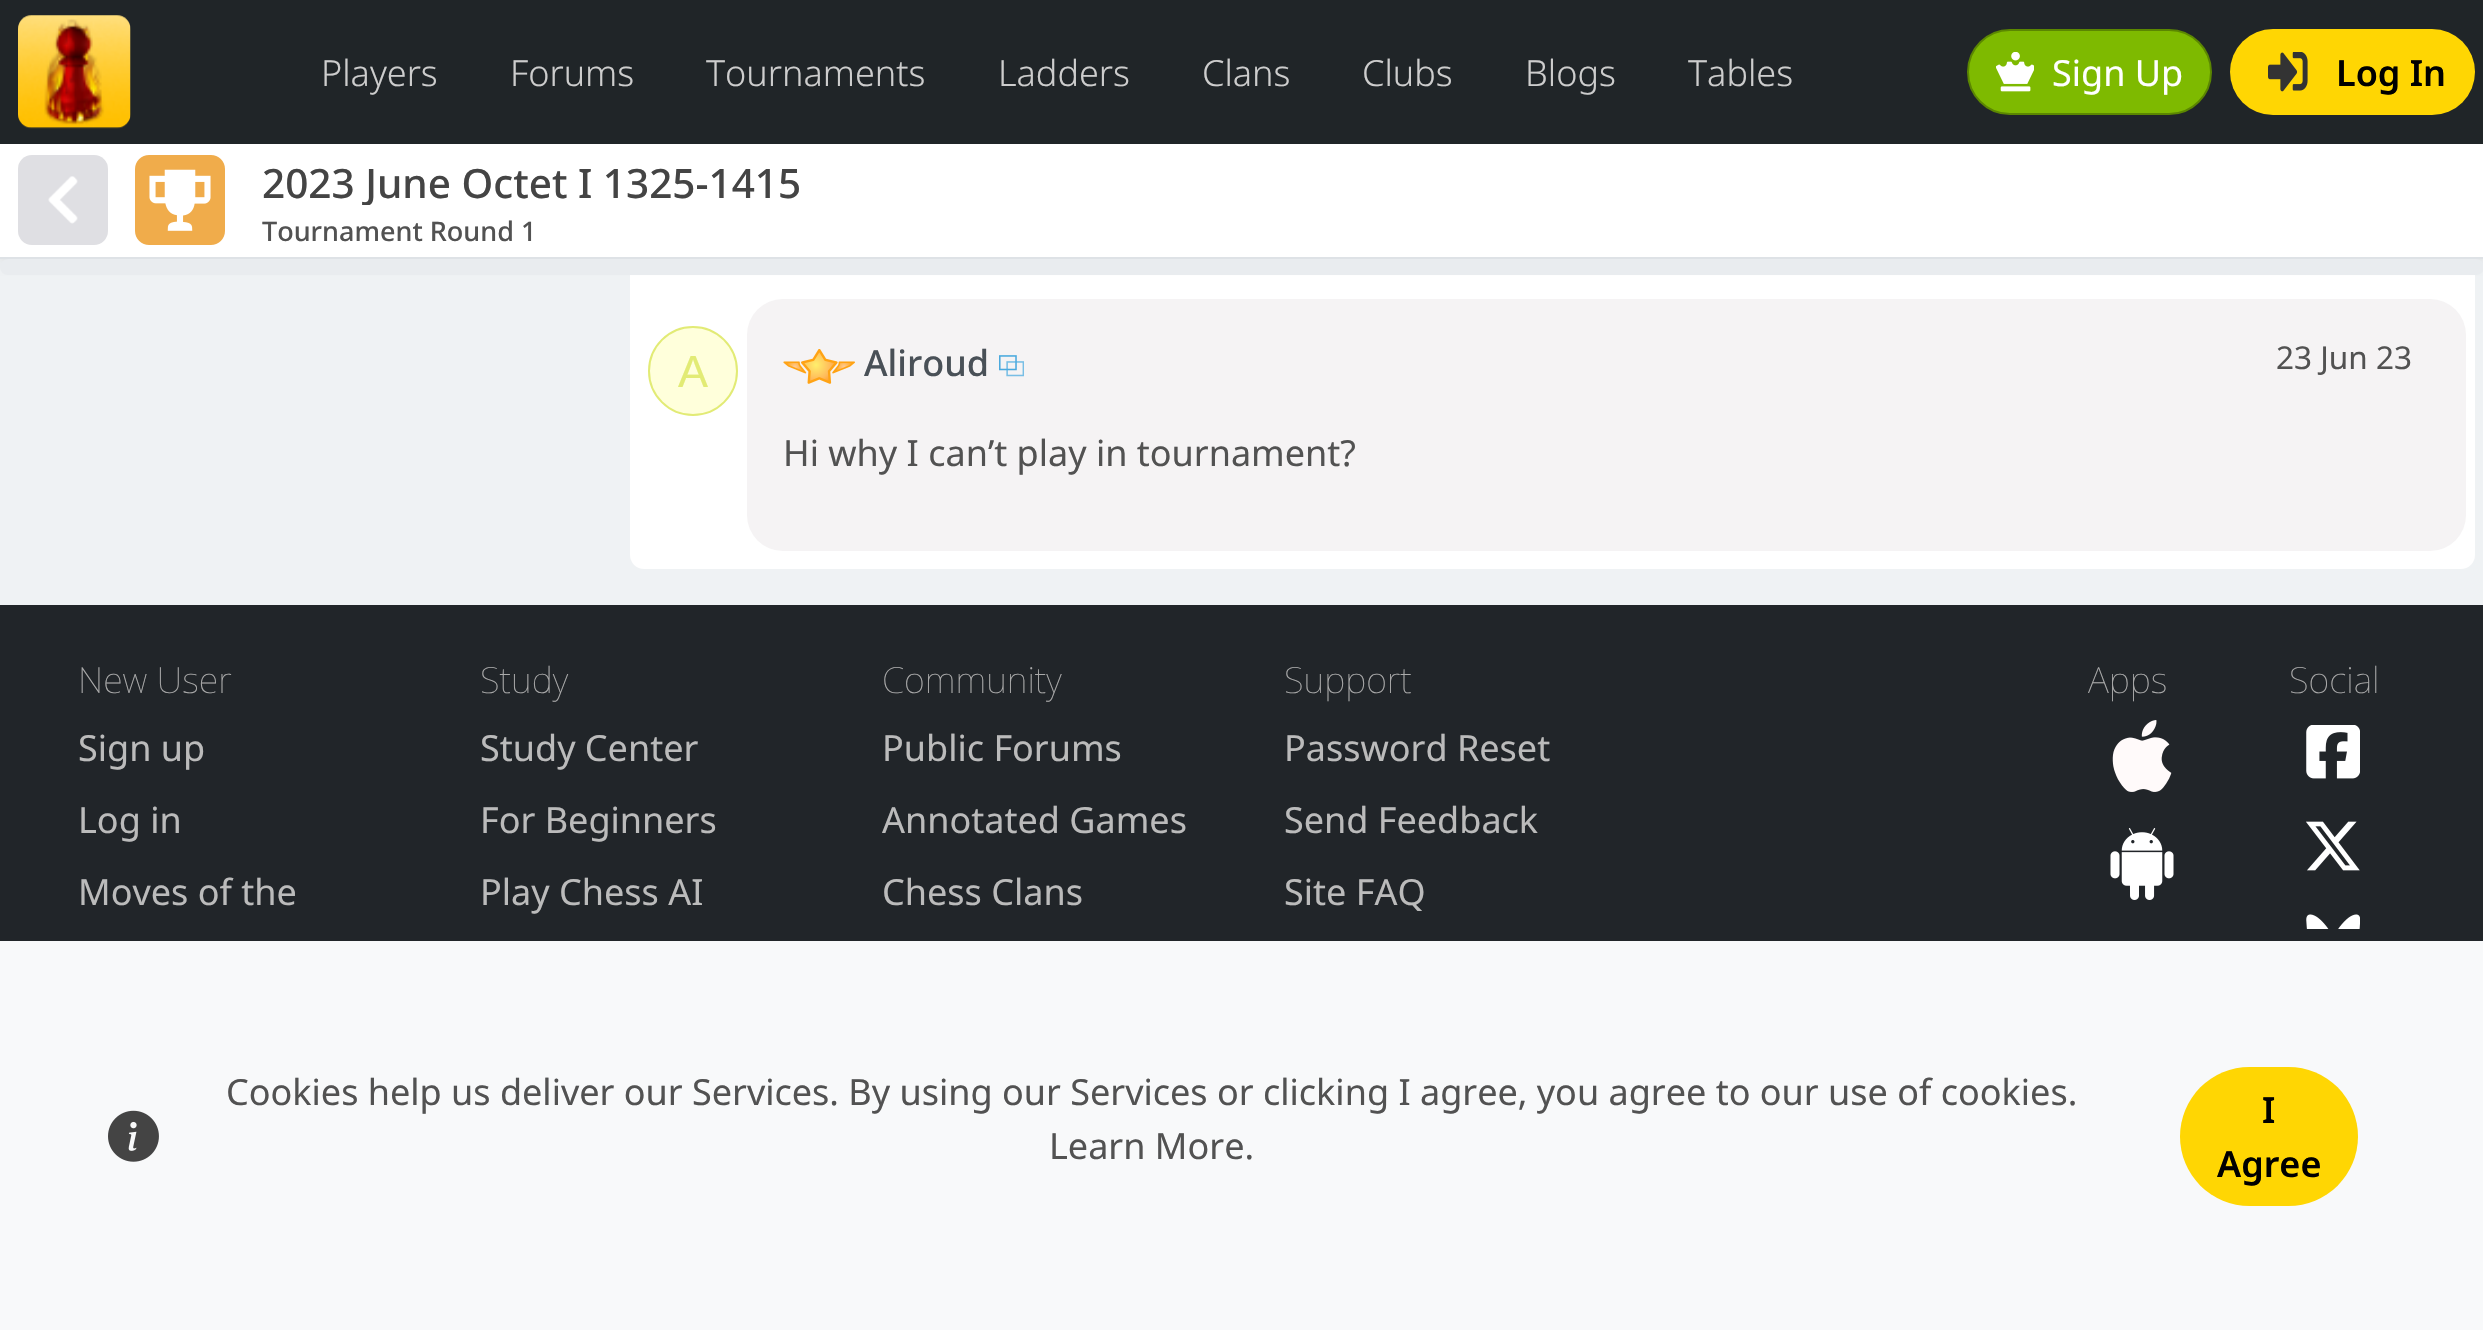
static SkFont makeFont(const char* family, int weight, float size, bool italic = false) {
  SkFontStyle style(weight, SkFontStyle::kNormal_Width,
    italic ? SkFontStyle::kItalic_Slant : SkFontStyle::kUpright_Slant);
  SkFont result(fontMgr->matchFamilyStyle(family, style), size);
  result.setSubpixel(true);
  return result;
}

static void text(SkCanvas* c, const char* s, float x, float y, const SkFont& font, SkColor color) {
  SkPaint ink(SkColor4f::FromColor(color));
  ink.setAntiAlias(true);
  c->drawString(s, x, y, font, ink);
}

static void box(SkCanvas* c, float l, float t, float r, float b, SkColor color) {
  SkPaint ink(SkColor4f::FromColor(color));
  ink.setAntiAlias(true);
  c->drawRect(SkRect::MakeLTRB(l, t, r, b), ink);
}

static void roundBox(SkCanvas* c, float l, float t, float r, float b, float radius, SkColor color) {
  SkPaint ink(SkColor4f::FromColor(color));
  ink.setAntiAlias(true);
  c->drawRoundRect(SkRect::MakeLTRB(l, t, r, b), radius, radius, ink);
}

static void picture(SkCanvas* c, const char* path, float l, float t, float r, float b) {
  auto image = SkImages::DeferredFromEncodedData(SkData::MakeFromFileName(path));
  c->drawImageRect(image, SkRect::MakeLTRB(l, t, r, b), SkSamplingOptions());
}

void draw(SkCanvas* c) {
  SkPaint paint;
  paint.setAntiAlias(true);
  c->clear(0xffeff2f4);
  box(c, 0, 0, 2483, 144, 0xff202528);
  picture(c, "img_01.png", 18, 15, 131, 129);
  SkFont face1 = makeFont("Noto Sans", 300, 36);
  text(c, "Players", 321, 86, face1, 0xffcdcdcd);
  text(c, "Forums", 510, 86, face1, 0xffcdcdcd);
  text(c, "Tournaments", 706, 86, face1, 0xffcdcdcd);
  text(c, "Ladders", 998, 86, face1, 0xffcdcdcd);
  text(c, "Clans", 1202, 86, face1, 0xffcdcdcd);
  text(c, "Clubs", 1362, 86, face1, 0xffcdcdcd);
  text(c, "Blogs", 1525, 86, face1, 0xffcdcdcd);
  text(c, "Tables", 1688, 86, face1, 0xffcdcdcd);
  paint.setColor(0xff7eba00);
  c->drawRoundRect(SkRect::MakeLTRB(1968, 30, 2211, 114), 42, 42, paint);
  paint.setStyle(SkPaint::kStroke_Style);
  paint.setStrokeWidth(2);
  paint.setColor(0xff5b8700);
  c->drawRoundRect(SkRect::MakeLTRB(1968, 30, 2211, 114), 42, 42, paint);
  picture(c, "img_02.png", 1996, 52, 2034, 92);
  SkFont face2 = makeFont("Noto Sans", 400, 36);
  text(c, "Sign Up", 2052, 86, face2, 0xffffffff);
  roundBox(c, 2230, 29, 2475, 115, 43, 0xffffd603);
  picture(c, "img_03.png", 2268, 52, 2308, 92);
  SkFont face3 = makeFont("Noto Sans", 600, 36);
  text(c, "Log In", 2336, 86, face3, 0xff000000);
  roundBox(c, 630, 171, 2475, 569, 14, 0xffffffff);
  paint.setStyle(SkPaint::kFill_Style);
  paint.setColor(0x12000000);
  paint.setMaskFilter(SkMaskFilter::MakeBlur(kNormal_SkBlurStyle, 4.5f));
  c->drawRect(SkRect::MakeLTRB(0, 149, 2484, 263), paint);
  paint.setMaskFilter(nullptr);
  box(c, 0, 144, 2483, 257, 0xffffffff);
  box(c, 0, 257, 2483, 259, 0xffdee2e6);
  roundBox(c, 18, 155, 108, 245, 14, 0xffdfdfe3);
  picture(c, "img_04.png", 48, 176, 78, 224);
  picture(c, "img_05.png", 135, 155, 225, 245);
  c->save();
  c->clipRect(SkRect::MakeLTRB(261, 151, 2466, 205));
  SkFont face4 = makeFont("Noto Sans", 500, 40.5f);
  text(c, "2023 June Octet I 1325-1415", 262, 198, face4, 0xff444444);
  c->restore();
  SkFont face5 = makeFont("Noto Sans", 500, 27);
  text(c, "Tournament Round 1", 262, 241, face5, 0xff525252);
  roundBox(c, 0, 259, 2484, 275, 8, 0xffe9ecef);
  paint.setColor(0xffffffdb);
  c->drawCircle(693, 371, 44, paint);
  paint.setStyle(SkPaint::kStroke_Style);
  paint.setColor(0xffe2eb75);
  c->drawCircle(693, 371, 44, paint);
  SkFont face6 = makeFont("Liberation Sans", 400, 45);
  text(c, "A", 678, 387, face6, 0xffe2eb75);
  roundBox(c, 747, 299, 2466, 551, 36, 0xfff5f3f4);
  picture(c, "img_06.png", 783, 349, 855, 384);
  SkFont face7 = makeFont("Noto Sans", 500, 36);
  text(c, "Aliroud", 864, 376, face7, 0xff495057);
  picture(c, "img_07.png", 999, 355, 1024, 377);
  SkFont face8 = makeFont("Noto Sans", 400, 31.5f);
  text(c, "23 Jun 23", 2276, 369, face8, 0xff525252);
  text(c, "Hi why I can’t play in tournament?", 783, 466, face2, 0xff525252);
  box(c, 0, 605, 2483, 941, 0xff212529);
  SkFont face9 = makeFont("Noto Sans", 100, 36);
  text(c, "New User", 78, 693, face9, 0xffaaaaaa);
  text(c, "Sign up", 78, 761, face2, 0xffbbbbbb);
  text(c, "Log in", 78, 833, face2, 0xffbbbbbb);
  text(c, "Moves of the", 78, 905, face2, 0xffbbbbbb);
  text(c, "Study", 480, 693, face9, 0xffaaaaaa);
  text(c, "Study Center", 480, 761, face2, 0xffbbbbbb);
  text(c, "For Beginners", 480, 833, face2, 0xffbbbbbb);
  text(c, "Play Chess AI", 480, 905, face2, 0xffbbbbbb);
  text(c, "Community", 882, 693, face9, 0xffaaaaaa);
  text(c, "Public Forums", 882, 761, face2, 0xffbbbbbb);
  text(c, "Annotated Games", 882, 833, face2, 0xffbbbbbb);
  text(c, "Chess Clans", 882, 905, face2, 0xffbbbbbb);
  text(c, "Support", 1284, 693, face9, 0xffaaaaaa);
  text(c, "Password Reset", 1284, 761, face2, 0xffbbbbbb);
  text(c, "Send Feedback", 1284, 833, face2, 0xffbbbbbb);
  text(c, "Site FAQ", 1284, 905, face2, 0xffbbbbbb);
  text(c, "Apps", 2088, 693, face9, 0xffaaaaaa);
  picture(c, "img_08.png", 2112, 720, 2172, 792);
  picture(c, "img_09.png", 2110, 828, 2174, 900);
  text(c, "Social", 2289, 693, face9, 0xffaaaaaa);
  picture(c, "img_10.png", 2306, 725, 2360, 779);
  picture(c, "img_11.png", 2306, 821, 2360, 871);
  picture(c, "img_12.png", 2306, 914, 2360, 929);
  box(c, 0, 941, 2483, 1330, 0xfff8f9fa);
  picture(c, "img_13.png", 108, 1110, 159, 1162);
  text(c, "Cookies help us deliver our Services. By using our Services or clicking I agree, you agree to our use of cookies.", 226, 1105, face2, 0xff525252);
  text(c, "Learn More.", 1049, 1159, face2, 0xff525252);
  roundBox(c, 2180, 1067, 2358, 1206, 69.5f, 0xffffd603);
  text(c, "I", 2262, 1123, face3, 0xff000000);
  text(c, "Agree", 2217, 1177, face3, 0xff000000);
}
